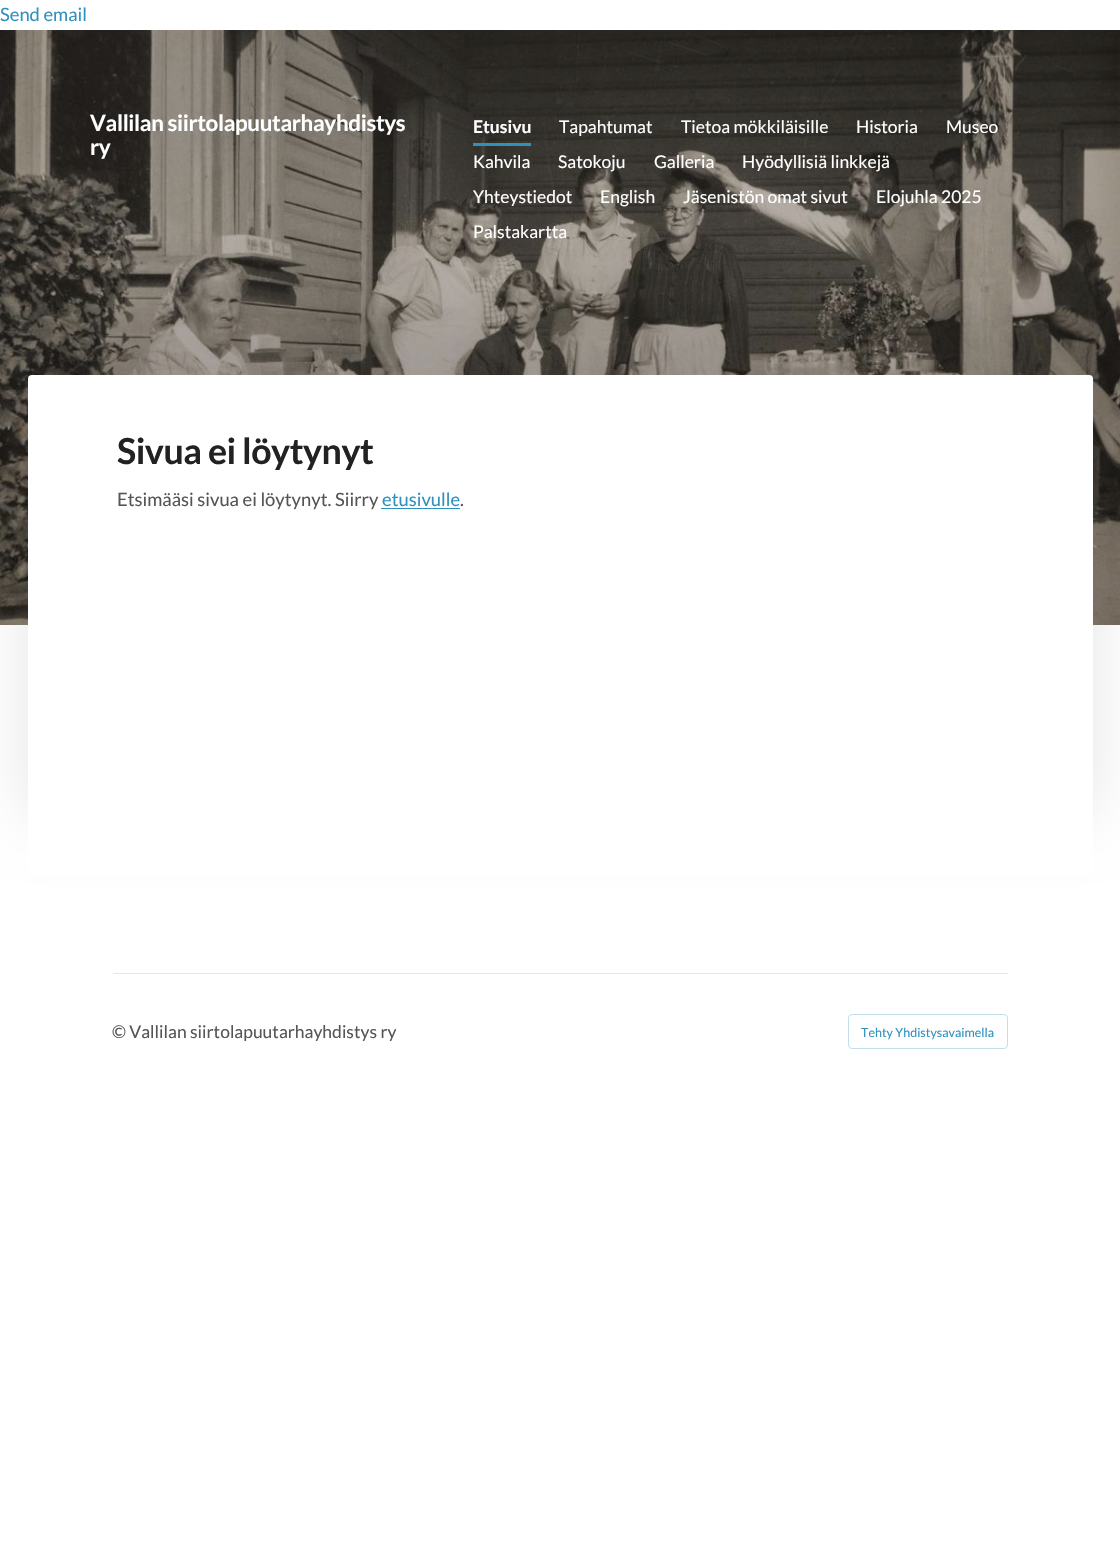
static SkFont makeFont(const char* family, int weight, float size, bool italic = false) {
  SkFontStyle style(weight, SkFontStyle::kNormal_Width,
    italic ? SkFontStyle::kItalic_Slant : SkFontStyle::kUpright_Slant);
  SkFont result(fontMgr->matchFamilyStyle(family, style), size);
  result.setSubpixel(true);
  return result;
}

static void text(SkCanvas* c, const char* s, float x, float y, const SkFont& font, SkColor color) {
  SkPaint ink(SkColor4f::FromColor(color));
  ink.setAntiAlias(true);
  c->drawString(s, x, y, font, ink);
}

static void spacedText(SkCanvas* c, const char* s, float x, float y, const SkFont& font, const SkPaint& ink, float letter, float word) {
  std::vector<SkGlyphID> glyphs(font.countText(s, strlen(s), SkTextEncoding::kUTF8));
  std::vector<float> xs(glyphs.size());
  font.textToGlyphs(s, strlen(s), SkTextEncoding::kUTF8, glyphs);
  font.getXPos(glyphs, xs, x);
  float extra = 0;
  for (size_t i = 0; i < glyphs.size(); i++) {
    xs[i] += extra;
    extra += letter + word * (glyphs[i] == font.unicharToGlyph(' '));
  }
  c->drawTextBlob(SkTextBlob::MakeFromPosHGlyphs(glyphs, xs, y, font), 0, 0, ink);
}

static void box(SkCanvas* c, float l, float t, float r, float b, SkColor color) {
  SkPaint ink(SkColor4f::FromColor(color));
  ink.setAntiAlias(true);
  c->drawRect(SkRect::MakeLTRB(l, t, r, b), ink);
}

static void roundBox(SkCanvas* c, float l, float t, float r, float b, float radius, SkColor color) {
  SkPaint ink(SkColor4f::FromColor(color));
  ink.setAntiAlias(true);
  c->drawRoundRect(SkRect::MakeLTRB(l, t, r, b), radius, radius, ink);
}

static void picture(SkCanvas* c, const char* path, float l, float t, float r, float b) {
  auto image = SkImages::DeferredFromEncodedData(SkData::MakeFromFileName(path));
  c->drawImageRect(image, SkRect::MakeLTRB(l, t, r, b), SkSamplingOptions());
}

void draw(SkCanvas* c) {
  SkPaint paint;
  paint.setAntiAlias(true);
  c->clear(0xffffffff);
  SkFont face1 = makeFont("Lato", 400, 18.4f);
  text(c, "Send email", 0, 21, face1, 0xff2f91be);
  picture(c, "img_01.png", 0, 30, 1120, 625);
  SkFont face2 = makeFont("Lato", 700, 22.4f);
  paint.setColor(0xffffffff);
  spacedText(c, "Vallilan siirtolapuutarhayhdistys", 90, 131, face2, paint, -0.35f, 0);
  spacedText(c, "ry", 90, 155, face2, paint, -0.35f, 0);
  SkFont face3 = makeFont("Lato", 700, 17.5f);
  text(c, "Etusivu", 473, 133, face3, 0xffffffff);
  box(c, 473, 143, 531, 146, 0xff2f91be);
  SkFont face4 = makeFont("Lato", 400, 17.5f);
  text(c, "Tapahtumat", 559, 133, face4, 0xffffffff);
  text(c, "Tietoa mökkiläisille", 681, 133, face4, 0xffffffff);
  text(c, "Historia", 856, 133, face4, 0xffffffff);
  text(c, "Museo", 946, 133, face4, 0xffffffff);
  text(c, "Kahvila", 473, 168, face4, 0xffffffff);
  text(c, "Satokoju", 558, 168, face4, 0xffffffff);
  text(c, "Galleria", 654, 168, face4, 0xffffffff);
  text(c, "Hyödyllisiä linkkejä", 742, 168, face4, 0xffffffff);
  text(c, "Yhteystiedot", 473, 203, face4, 0xffffffff);
  text(c, "English", 600, 203, face4, 0xffffffff);
  text(c, "Jäsenistön omat sivut", 683, 203, face4, 0xffffffff);
  text(c, "Elojuhla 2025", 876, 203, face4, 0xffffffff);
  text(c, "Palstakartta", 473, 238, face4, 0xffffffff);
  paint.setColor(0x1a000000);
  paint.setMaskFilter(SkMaskFilter::MakeBlur(kNormal_SkBlurStyle, 31));
  c->drawRoundRect(SkRect::MakeLTRB(28, 313, 1093, 813), 4, 4, paint);
  paint.setMaskFilter(nullptr);
  roundBox(c, 28, 375, 1093, 875, 4, 0xffffffff);
  SkFont face5 = makeFont("Lato", 700, 35.75f);
  paint.setColor(0xff222222);
  spacedText(c, "Sivua ei löytynyt", 117, 464, face5, paint, -0.5f, 0);
  text(c, "Etsimääsi sivua ei löytynyt. Siirry", 117, 506, face1, 0xff555555);
  text(c, "etusivulle", 382, 506, face1, 0xff2f91be);
  box(c, 381, 508, 460, 509, 0xff2f91be);
  text(c, ".", 460, 506, face1, 0xff555555);
  box(c, 113, 973, 1008, 974, 0xffe6e6e6);
  text(c, "© Vallilan siirtolapuutarhayhdistys ry", 112, 1038, face4, 0xff555555);
  paint.setStyle(SkPaint::kStroke_Style);
  paint.setStrokeWidth(1);
  paint.setColor(0xffc1deec);
  c->drawRoundRect(SkRect::MakeLTRB(848.5f, 1014.5f, 1007.5f, 1048.5f), 3.5f, 3.5f, paint);
  SkFont face6 = makeFont("Lato", 400, 12.5f);
  text(c, "Tehty Yhdistysavaimella", 861, 1037, face6, 0xff2f91be);
}
